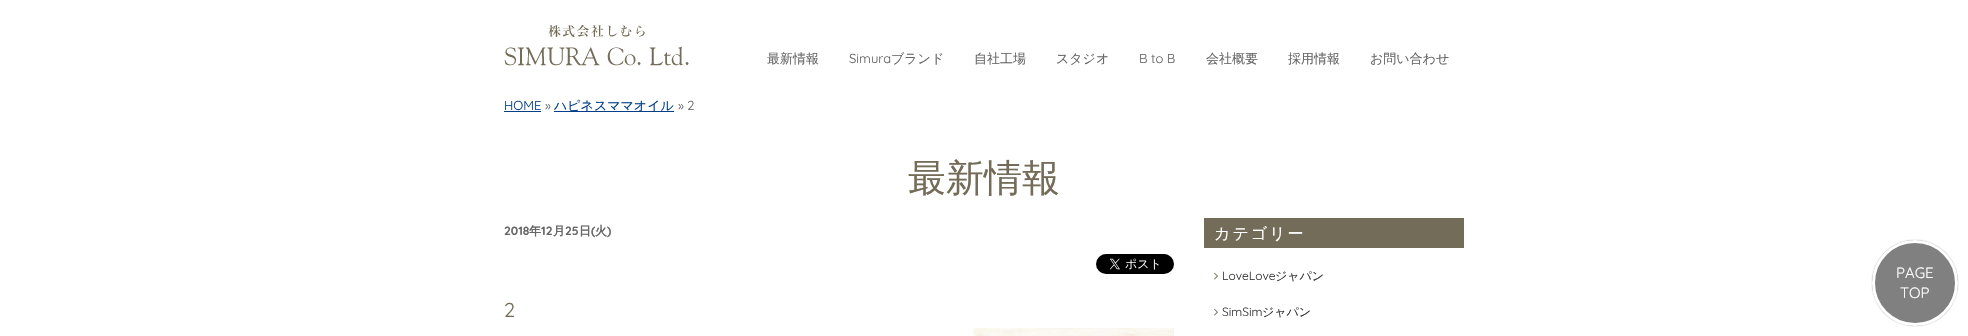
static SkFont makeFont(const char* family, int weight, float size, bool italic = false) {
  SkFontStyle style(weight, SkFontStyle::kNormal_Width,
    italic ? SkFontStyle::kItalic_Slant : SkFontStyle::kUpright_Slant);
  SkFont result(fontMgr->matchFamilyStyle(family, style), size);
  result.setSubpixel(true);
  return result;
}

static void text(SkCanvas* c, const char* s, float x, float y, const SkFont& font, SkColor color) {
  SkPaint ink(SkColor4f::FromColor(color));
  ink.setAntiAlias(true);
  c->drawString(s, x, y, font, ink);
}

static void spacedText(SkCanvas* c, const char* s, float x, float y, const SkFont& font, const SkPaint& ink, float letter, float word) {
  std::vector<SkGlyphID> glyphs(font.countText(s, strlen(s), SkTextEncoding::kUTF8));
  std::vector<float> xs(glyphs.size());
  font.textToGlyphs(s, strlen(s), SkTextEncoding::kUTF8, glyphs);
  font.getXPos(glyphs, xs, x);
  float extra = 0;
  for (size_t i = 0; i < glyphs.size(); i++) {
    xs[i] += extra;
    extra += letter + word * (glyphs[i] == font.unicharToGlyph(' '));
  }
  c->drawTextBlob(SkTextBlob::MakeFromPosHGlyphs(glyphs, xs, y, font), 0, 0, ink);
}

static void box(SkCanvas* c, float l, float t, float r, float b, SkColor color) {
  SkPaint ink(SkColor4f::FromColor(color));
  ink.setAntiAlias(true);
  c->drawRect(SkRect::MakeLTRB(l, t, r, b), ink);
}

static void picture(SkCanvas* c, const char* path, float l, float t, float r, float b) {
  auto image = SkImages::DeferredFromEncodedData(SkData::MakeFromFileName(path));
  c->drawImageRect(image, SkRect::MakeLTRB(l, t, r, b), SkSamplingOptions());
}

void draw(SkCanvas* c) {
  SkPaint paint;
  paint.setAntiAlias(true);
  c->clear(0xffffffff);
  picture(c, "img_01.png", 504, 25, 689, 66);
  SkFont face1 = makeFont("WenQuanYi Zen Hei", 500, 13);
  text(c, "最新情報", 767, 63, face1, 0xff666666);
  SkFont face2 = makeFont("Quicksand", 400, 13);
  text(c, "Simura", 849, 63, face2, 0xff666666);
  text(c, "ブランド", 891, 63, face1, 0xff666666);
  text(c, "自社工場", 974, 63, face1, 0xff666666);
  text(c, "スタジオ", 1056, 63, face1, 0xff666666);
  text(c, "B to B", 1139, 63, face2, 0xff666666);
  text(c, "会社概要", 1206, 63, face1, 0xff666666);
  text(c, "採用情報", 1288, 63, face1, 0xff666666);
  text(c, "お問い合わせ", 1370, 63, face1, 0xff666666);
  text(c, "HOME", 504, 110, face2, 0xff023f88);
  box(c, 504, 111, 541, 112, 0xff023f88);
  text(c, "»", 545, 110, face2, 0xff666666);
  box(c, 554, 111, 674, 112, 0xff023f88);
  text(c, "ハピネスママオイル", 554, 110, face1, 0xff023f88);
  text(c, "» 2", 678, 110, face2, 0xff666666);
  SkFont face3 = makeFont("WenQuanYi Zen Hei", 500, 38);
  text(c, "最新情報", 908, 191, face3, 0xff746c58);
  SkFont face4 = makeFont("Quicksand", 700, 12);
  text(c, "2018", 504, 235, face4, 0xff666666);
  SkFont face5 = makeFont("WenQuanYi Zen Hei", 700, 12);
  text(c, "年", 529, 235, face5, 0xff666666);
  text(c, "12", 541, 235, face4, 0xff666666);
  text(c, "月", 553, 235, face5, 0xff666666);
  text(c, "25", 565, 235, face4, 0xff666666);
  text(c, "日", 579, 235, face5, 0xff666666);
  text(c, "(", 591, 235, face4, 0xff666666);
  text(c, "火", 595, 235, face5, 0xff666666);
  text(c, ")", 607, 235, face4, 0xff666666);
  picture(c, "img_02.png", 1096, 254, 1174, 274);
  SkFont face6 = makeFont("Quicksand", 400, 20);
  paint.setColor(0xff746c58);
  spacedText(c, "2", 504, 317, face6, paint, 2, 0);
  picture(c, "img_03.png", 973, 328, 1174, 336);
  box(c, 1204, 218, 1464, 248, 0xff736c58);
  SkFont face7 = makeFont("WenQuanYi Zen Hei", 500, 16);
  paint.setColor(0xffffffff);
  spacedText(c, "カテゴリー", 1214, 239, face7, paint, 2, 0);
  picture(c, "img_04.png", 1214, 272, 1218, 280);
  SkFont face8 = makeFont("Quicksand", 400, 12);
  text(c, "LoveLove", 1222, 280, face8, 0xff333333);
  SkFont face9 = makeFont("WenQuanYi Zen Hei", 500, 12);
  text(c, "ジャパン", 1275, 280, face9, 0xff333333);
  picture(c, "img_04.png", 1214, 308, 1218, 316);
  text(c, "SimSim", 1222, 316, face8, 0xff333333);
  text(c, "ジャパン", 1262, 316, face9, 0xff333333);
  paint.setColor(0xff808080);
  paint.setMaskFilter(SkMaskFilter::MakeBlur(kNormal_SkBlurStyle, 0.5f));
  c->drawRoundRect(SkRect::MakeLTRB(1872, 240, 1958, 326), 43, 43, paint);
  paint.setMaskFilter(nullptr);
  c->drawCircle(1915, 283, 41.5f, paint);
  paint.setStyle(SkPaint::kStroke_Style);
  paint.setStrokeWidth(3);
  paint.setColor(0xffffffff);
  c->drawCircle(1915, 283, 41.5f, paint);
  SkFont face10 = makeFont("Quicksand", 400, 15);
  text(c, "PAGE", 1896, 278, face10, 0xffffffff);
  text(c, "TOP", 1900, 298, face10, 0xffffffff);
}
